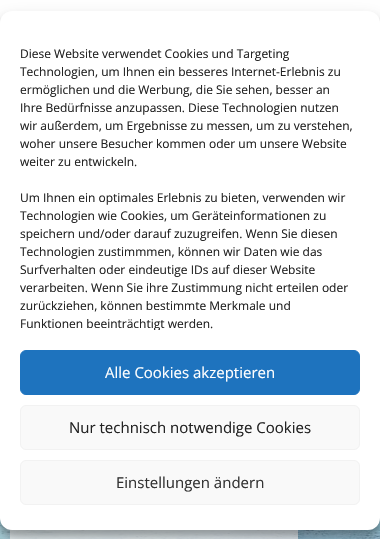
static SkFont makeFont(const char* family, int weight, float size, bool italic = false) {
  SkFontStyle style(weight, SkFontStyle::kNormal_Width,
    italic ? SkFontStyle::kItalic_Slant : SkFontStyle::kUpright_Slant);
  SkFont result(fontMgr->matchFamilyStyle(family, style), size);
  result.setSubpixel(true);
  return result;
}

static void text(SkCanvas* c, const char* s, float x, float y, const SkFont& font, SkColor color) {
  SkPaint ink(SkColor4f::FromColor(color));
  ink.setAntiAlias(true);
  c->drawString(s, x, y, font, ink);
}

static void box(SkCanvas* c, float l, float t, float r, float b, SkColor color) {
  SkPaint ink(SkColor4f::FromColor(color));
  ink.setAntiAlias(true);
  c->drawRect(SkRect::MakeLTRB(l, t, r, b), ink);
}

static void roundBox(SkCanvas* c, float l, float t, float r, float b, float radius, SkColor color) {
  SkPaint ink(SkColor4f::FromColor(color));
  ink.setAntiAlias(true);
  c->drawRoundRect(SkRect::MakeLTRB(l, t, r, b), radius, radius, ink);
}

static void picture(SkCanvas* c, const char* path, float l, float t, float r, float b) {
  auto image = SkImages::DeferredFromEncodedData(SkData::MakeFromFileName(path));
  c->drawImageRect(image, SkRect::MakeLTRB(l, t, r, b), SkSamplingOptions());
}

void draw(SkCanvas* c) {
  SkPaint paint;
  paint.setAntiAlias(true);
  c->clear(0xffffffff);
  picture(c, "img_01.png", 0, 518, 380, 539);
  box(c, 10, 529, 298, 539, 0xbfffffff);
  paint.setColor(0x3b000000);
  paint.setMaskFilter(SkMaskFilter::MakeBlur(kNormal_SkBlurStyle, 3));
  c->drawRoundRect(SkRect::MakeLTRB(0, 17, 380, 536), 12, 12, paint);
  paint.setMaskFilter(nullptr);
  paint.setColor(0x30000000);
  paint.setMaskFilter(SkMaskFilter::MakeBlur(kNormal_SkBlurStyle, 10));
  c->drawRoundRect(SkRect::MakeLTRB(0, 21, 380, 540), 12, 12, paint);
  paint.setMaskFilter(nullptr);
  roundBox(c, 0, 11, 380, 530, 12, 0xffffffff);
  SkFont face1 = makeFont("Open Sans", 400, 12);
  text(c, "Diese Website verwendet Cookies und Targeting", 20, 58, face1, 0xff222222);
  text(c, "Technologien, um Ihnen ein besseres Internet-Erlebnis zu", 20, 76, face1, 0xff222222);
  text(c, "ermöglichen und die Werbung, die Sie sehen, besser an", 20, 94, face1, 0xff222222);
  text(c, "Ihre Bedürfnisse anzupassen. Diese Technologien nutzen", 20, 112, face1, 0xff222222);
  text(c, "wir außerdem, um Ergebnisse zu messen, um zu verstehen,", 20, 130, face1, 0xff222222);
  text(c, "woher unsere Besucher kommen oder um unsere Website", 20, 148, face1, 0xff222222);
  text(c, "weiter zu entwickeln.", 20, 166, face1, 0xff222222);
  text(c, "Um Ihnen ein optimales Erlebnis zu bieten, verwenden wir", 20, 202, face1, 0xff222222);
  text(c, "Technologien wie Cookies, um Geräteinformationen zu", 20, 220, face1, 0xff222222);
  text(c, "speichern und/oder darauf zuzugreifen. Wenn Sie diesen", 20, 238, face1, 0xff222222);
  text(c, "Technologien zustimmmen, können wir Daten wie das", 20, 256, face1, 0xff222222);
  text(c, "Surfverhalten oder eindeutige IDs auf dieser Website", 20, 274, face1, 0xff222222);
  text(c, "verarbeiten. Wenn Sie ihre Zustimmung nicht erteilen oder", 20, 292, face1, 0xff222222);
  text(c, "zurückziehen, können bestimmte Merkmale und", 20, 310, face1, 0xff222222);
  c->save();
  c->clipRect(SkRect::MakeLTRB(20, 46, 360, 330));
  text(c, "Funktionen beeinträchtigt werden.", 20, 328, face1, 0xff222222);
  c->restore();
  paint.setColor(0xff1e73be);
  c->drawRoundRect(SkRect::MakeLTRB(20.5f, 350.5f, 359.5f, 394.5f), 5.5f, 5.5f, paint);
  paint.setStyle(SkPaint::kStroke_Style);
  paint.setStrokeWidth(1);
  c->drawRoundRect(SkRect::MakeLTRB(20.5f, 350.5f, 359.5f, 394.5f), 5.5f, 5.5f, paint);
  SkFont face2 = makeFont("Open Sans", 400, 15);
  text(c, "Alle Cookies akzeptieren", 105, 378, face2, 0xffffffff);
  paint.setStyle(SkPaint::kFill_Style);
  paint.setColor(0xfff9f9f9);
  c->drawRoundRect(SkRect::MakeLTRB(20.5f, 405.5f, 359.5f, 449.5f), 5.5f, 5.5f, paint);
  paint.setStyle(SkPaint::kStroke_Style);
  paint.setColor(0xfff2f2f2);
  c->drawRoundRect(SkRect::MakeLTRB(20.5f, 405.5f, 359.5f, 449.5f), 5.5f, 5.5f, paint);
  text(c, "Nur technisch notwendige Cookies", 69, 433, face2, 0xff222222);
  paint.setStyle(SkPaint::kFill_Style);
  paint.setColor(0xfff9f9f9);
  c->drawRoundRect(SkRect::MakeLTRB(20.5f, 460.5f, 359.5f, 504.5f), 5.5f, 5.5f, paint);
  paint.setStyle(SkPaint::kStroke_Style);
  paint.setColor(0xfff2f2f2);
  c->drawRoundRect(SkRect::MakeLTRB(20.5f, 460.5f, 359.5f, 504.5f), 5.5f, 5.5f, paint);
  text(c, "Einstellungen ändern", 116, 488, face2, 0xff333333);
}
